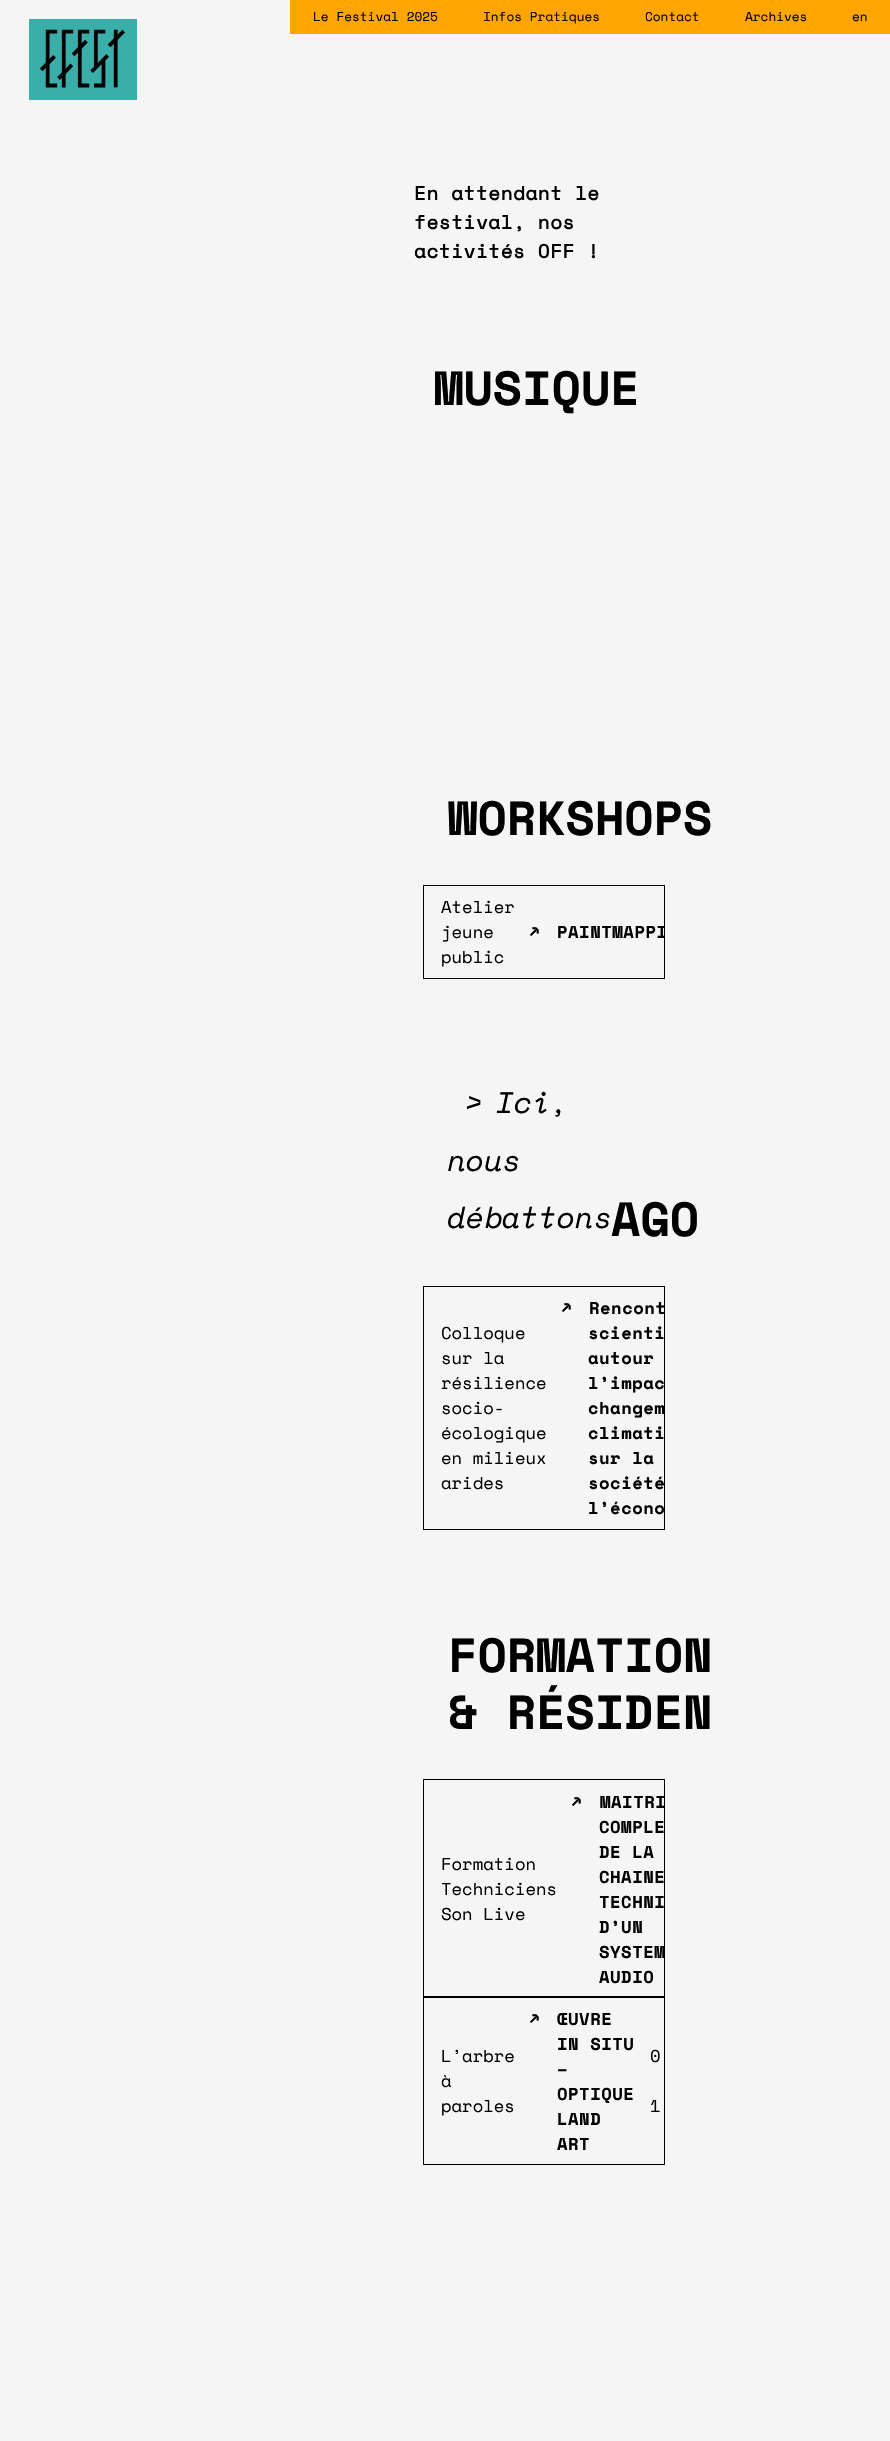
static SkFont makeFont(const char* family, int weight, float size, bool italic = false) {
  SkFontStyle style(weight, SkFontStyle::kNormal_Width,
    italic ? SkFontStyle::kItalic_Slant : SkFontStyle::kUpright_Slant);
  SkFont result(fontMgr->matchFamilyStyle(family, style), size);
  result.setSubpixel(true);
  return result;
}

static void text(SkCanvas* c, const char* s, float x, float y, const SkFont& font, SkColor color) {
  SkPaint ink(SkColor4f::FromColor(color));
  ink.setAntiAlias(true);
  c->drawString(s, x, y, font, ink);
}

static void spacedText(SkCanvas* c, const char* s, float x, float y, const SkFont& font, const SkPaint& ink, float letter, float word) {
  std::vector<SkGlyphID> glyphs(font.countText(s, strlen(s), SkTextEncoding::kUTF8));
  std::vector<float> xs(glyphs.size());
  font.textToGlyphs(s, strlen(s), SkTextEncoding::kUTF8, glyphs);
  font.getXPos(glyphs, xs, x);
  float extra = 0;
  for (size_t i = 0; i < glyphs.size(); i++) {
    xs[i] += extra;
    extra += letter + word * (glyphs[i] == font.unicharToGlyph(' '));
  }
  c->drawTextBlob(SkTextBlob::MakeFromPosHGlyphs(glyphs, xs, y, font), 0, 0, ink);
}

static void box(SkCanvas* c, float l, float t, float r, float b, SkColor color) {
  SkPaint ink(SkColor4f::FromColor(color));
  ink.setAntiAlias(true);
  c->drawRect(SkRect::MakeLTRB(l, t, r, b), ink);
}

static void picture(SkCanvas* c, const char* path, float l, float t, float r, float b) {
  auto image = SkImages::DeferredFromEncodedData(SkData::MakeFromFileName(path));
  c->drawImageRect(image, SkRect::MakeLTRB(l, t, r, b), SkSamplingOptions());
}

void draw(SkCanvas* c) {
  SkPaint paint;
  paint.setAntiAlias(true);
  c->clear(0xfff5f5f5);
  box(c, 290, 0, 890, 34, 0xffffa500);
  SkFont face1 = makeFont("Space Mono", 400, 12.75f);
  text(c, "Le Festival 2025", 313, 21, face1, 0xff000000);
  text(c, "Infos Pratiques", 483, 21, face1, 0xff000000);
  text(c, "Contact", 645, 21, face1, 0xff000000);
  text(c, "Archives", 745, 21, face1, 0xff000000);
  text(c, "en", 852, 21, face1, 0xff000000);
  box(c, 29, 19, 137, 100, 0xff3aafa9);
  picture(c, "img_01.png", 40, 29, 125, 88);
  SkFont face2 = makeFont("Space Mono", 700, 19.25f);
  paint.setColor(0xff000000);
  spacedText(c, "En attendant le", 414, 200, face2, paint, 0.6f, 0);
  spacedText(c, "festival, nos", 414, 229, face2, paint, 0.6f, 0);
  spacedText(c, "activités OFF !", 414, 258, face2, paint, 0.6f, 0);
  SkFont face3 = makeFont("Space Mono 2", 700, 48);
  text(c, "MUSIQUE", 434, 405, face3, 0xff000000);
  text(c, "WORKSHOPS", 448, 835, face3, 0xff000000);
  paint.setStyle(SkPaint::kStroke_Style);
  paint.setStrokeWidth(1);
  c->drawRect(SkRect::MakeLTRB(423.5f, 885.5f, 664.5f, 978.5f), paint);
  SkFont face4 = makeFont("Space Mono", 400, 17.25f);
  text(c, "Atelier", 441, 913, face4, 0xff000000);
  text(c, "jeune", 441, 938, face4, 0xff000000);
  text(c, "public", 441, 963, face4, 0xff000000);
  SkFont face5 = makeFont("Space Mono 2", 700, 17.25f);
  paint.setStyle(SkPaint::kFill_Style);
  spacedText(c, "↗", 529, 938, face5, paint, 0.5f, 0);
  c->save();
  c->clipRect(SkRect::MakeLTRB(424, 886, 664, 978));
  spacedText(c, "PAINTMAPPI", 557, 938, face5, paint, 0.5f, 0);
  c->restore();
  SkFont face6 = makeFont("Space Mono", 400, 29.75f, true);
  text(c, ">", 465, 1113, face6, 0xff000000);
  text(c, "Ici,", 496, 1113, face6, 0xff000000);
  text(c, "nous", 448, 1171, face6, 0xff000000);
  text(c, "débattons", 448, 1228, face6, 0xff000000);
  text(c, "AGO", 611, 1236, face3, 0xff000000);
  paint.setStyle(SkPaint::kStroke_Style);
  c->drawRect(SkRect::MakeLTRB(423.5f, 1286.5f, 664.5f, 1529.5f), paint);
  text(c, "Colloque", 441, 1339, face4, 0xff000000);
  text(c, "sur la", 441, 1364, face4, 0xff000000);
  text(c, "résilience", 441, 1389, face4, 0xff000000);
  text(c, "socio-", 441, 1414, face4, 0xff000000);
  text(c, "écologique", 441, 1439, face4, 0xff000000);
  text(c, "en milieux", 441, 1464, face4, 0xff000000);
  text(c, "arides", 441, 1489, face4, 0xff000000);
  paint.setStyle(SkPaint::kFill_Style);
  spacedText(c, "↗", 561, 1314, face5, paint, 0.5f, 0);
  spacedText(c, "Rencont", 589, 1314, face5, paint, 0.5f, 0);
  spacedText(c, "scienti", 588, 1339, face5, paint, 0.5f, 0);
  spacedText(c, "autour", 588, 1364, face5, paint, 0.5f, 0);
  spacedText(c, "l’impac", 588, 1389, face5, paint, 0.5f, 0);
  spacedText(c, "changem", 588, 1414, face5, paint, 0.5f, 0);
  spacedText(c, "climati", 588, 1439, face5, paint, 0.5f, 0);
  spacedText(c, "sur la", 588, 1464, face5, paint, 0.5f, 0);
  spacedText(c, "société", 588, 1489, face5, paint, 0.5f, 0);
  spacedText(c, "l’écono", 588, 1514, face5, paint, 0.5f, 0);
  text(c, "FORMATION", 448, 1672, face3, 0xff000000);
  text(c, "& RÉSIDEN", 448, 1729, face3, 0xff000000);
  paint.setStyle(SkPaint::kStroke_Style);
  c->drawRect(SkRect::MakeLTRB(423.5f, 1779.5f, 664.5f, 1997.5f), paint);
  text(c, "Formation", 441, 1870, face4, 0xff000000);
  text(c, "Techniciens", 441, 1895, face4, 0xff000000);
  text(c, "Son Live", 441, 1920, face4, 0xff000000);
  paint.setStyle(SkPaint::kFill_Style);
  spacedText(c, "↗", 571, 1808, face5, paint, 0.5f, 0);
  spacedText(c, "MAITRI", 600, 1808, face5, paint, 0.5f, 0);
  spacedText(c, "COMPLE", 599, 1833, face5, paint, 0.5f, 0);
  spacedText(c, "DE LA", 599, 1858, face5, paint, 0.5f, 0);
  spacedText(c, "CHAINE", 599, 1883, face5, paint, 0.5f, 0);
  spacedText(c, "TECHNI", 599, 1908, face5, paint, 0.5f, 0);
  spacedText(c, "D’UN", 599, 1933, face5, paint, 0.5f, 0);
  spacedText(c, "SYSTEM", 599, 1958, face5, paint, 0.5f, 0);
  spacedText(c, "AUDIO", 599, 1983, face5, paint, 0.5f, 0);
  paint.setStyle(SkPaint::kStroke_Style);
  c->drawRect(SkRect::MakeLTRB(423.5f, 1996.5f, 664.5f, 2164.5f), paint);
  text(c, "L’arbre", 441, 2062, face4, 0xff000000);
  text(c, "à", 441, 2087, face4, 0xff000000);
  text(c, "paroles", 441, 2112, face4, 0xff000000);
  paint.setStyle(SkPaint::kFill_Style);
  spacedText(c, "↗", 529, 2025, face5, paint, 0.5f, 0);
  spacedText(c, "ŒUVRE", 557, 2025, face5, paint, 0.5f, 0);
  spacedText(c, "IN SITU", 557, 2050, face5, paint, 0.5f, 0);
  spacedText(c, "–", 557, 2075, face5, paint, 0.5f, 0);
  spacedText(c, "OPTIQUE", 557, 2100, face5, paint, 0.5f, 0);
  spacedText(c, "LAND", 557, 2125, face5, paint, 0.5f, 0);
  spacedText(c, "ART", 557, 2150, face5, paint, 0.5f, 0);
  text(c, "0", 650, 2062, face4, 0xff000000);
  text(c, "1", 650, 2112, face4, 0xff000000);
}
